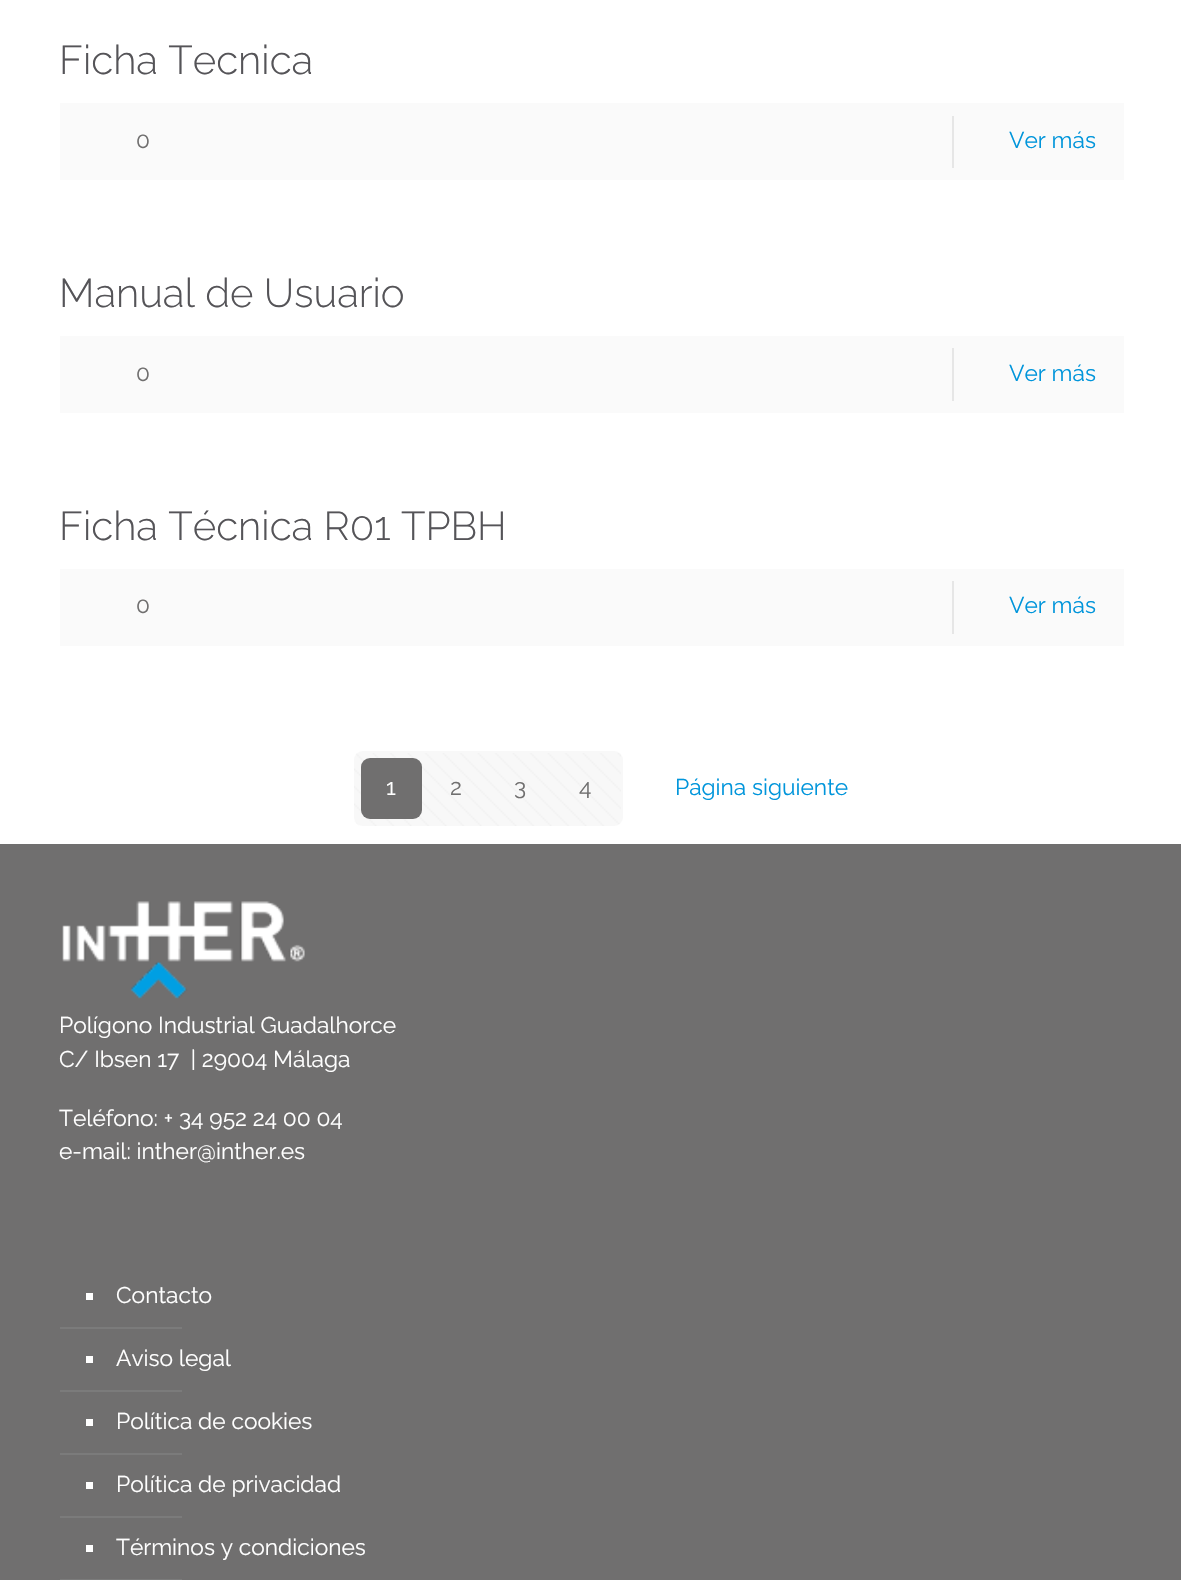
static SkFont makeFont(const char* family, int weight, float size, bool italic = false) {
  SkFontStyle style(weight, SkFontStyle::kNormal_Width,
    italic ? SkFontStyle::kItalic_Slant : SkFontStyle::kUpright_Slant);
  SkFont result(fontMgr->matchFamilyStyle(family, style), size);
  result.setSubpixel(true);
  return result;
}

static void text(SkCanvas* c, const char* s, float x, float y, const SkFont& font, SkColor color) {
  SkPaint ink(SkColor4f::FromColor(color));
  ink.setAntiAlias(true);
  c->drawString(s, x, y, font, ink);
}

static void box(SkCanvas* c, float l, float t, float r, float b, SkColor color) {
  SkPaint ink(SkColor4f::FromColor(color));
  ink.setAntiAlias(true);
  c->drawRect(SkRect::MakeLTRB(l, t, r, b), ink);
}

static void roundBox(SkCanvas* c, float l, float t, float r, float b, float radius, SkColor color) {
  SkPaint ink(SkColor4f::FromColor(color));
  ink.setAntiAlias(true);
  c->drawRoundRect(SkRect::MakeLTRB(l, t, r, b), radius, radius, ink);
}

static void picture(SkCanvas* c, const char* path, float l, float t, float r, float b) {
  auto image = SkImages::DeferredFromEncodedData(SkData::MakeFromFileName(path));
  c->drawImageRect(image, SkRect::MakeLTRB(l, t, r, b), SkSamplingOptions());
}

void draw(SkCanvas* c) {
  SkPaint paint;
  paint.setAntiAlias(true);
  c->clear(0xffffffff);
  SkFont face1 = makeFont("Raleway", 300, 40.25f);
  text(c, "Ficha Tecnica", 59, 74, face1, 0xff555458);
  box(c, 60, 103, 1124, 180, 0xfffafafa);
  SkFont face2 = makeFont("Raleway", 400, 22.75f);
  text(c, "0", 136, 148, face2, 0xff706f6f);
  box(c, 952, 116, 954, 168, 0xffe6e6e6);
  text(c, "Ver más", 1009, 148, face2, 0xff0095db);
  text(c, "Manual de Usuario", 59, 307, face1, 0xff555458);
  box(c, 60, 336, 1124, 413, 0xfffafafa);
  text(c, "0", 136, 381, face2, 0xff706f6f);
  box(c, 952, 348, 954, 401, 0xffe6e6e6);
  text(c, "Ver más", 1009, 381, face2, 0xff0095db);
  text(c, "Ficha Técnica R01 TPBH", 59, 540, face1, 0xff555458);
  box(c, 60, 569, 1124, 646, 0xfffafafa);
  text(c, "0", 136, 613, face2, 0xff706f6f);
  box(c, 952, 581, 954, 634, 0xffe6e6e6);
  text(c, "Ver más", 1009, 613, face2, 0xff0095db);
  roundBox(c, 354, 751, 623, 826, 9, 0xfff8f8f8);
  picture(c, "img_01.png", 354, 753, 621, 826);
  roundBox(c, 361, 758, 422, 819, 9, 0xff706f6f);
  text(c, "1", 386, 795, face2, 0xffffffff);
  text(c, "2", 450, 795, face2, 0xff706f6f);
  text(c, "3", 514, 795, face2, 0xff706f6f);
  text(c, "4", 579, 795, face2, 0xff706f6f);
  text(c, "Página siguiente", 675, 795, face2, 0xff0095db);
  box(c, 0, 844, 1181, 1580, 0xff706f6f);
  picture(c, "img_02.png", 62, 901, 305, 999);
  text(c, "Polígono Industrial Guadalhorce", 59, 1033, face2, 0xffffffff);
  text(c, "C/ Ibsen 17  | 29004 Málaga", 59, 1067, face2, 0xffffffff);
  text(c, "Teléfono: + 34 952 24 00 04", 59, 1126, face2, 0xffffffff);
  text(c, "e-mail: inther@inther.es", 59, 1159, face2, 0xffffffff);
  box(c, 86, 1293, 93, 1300, 0xffffffff);
  text(c, "Contacto", 116, 1303, face2, 0xffffffff);
  box(c, 60, 1327, 182, 1329, 0xff7b7b7b);
  box(c, 86, 1356, 93, 1363, 0xffffffff);
  text(c, "Aviso legal", 116, 1366, face2, 0xffffffff);
  box(c, 60, 1390, 182, 1392, 0xff7b7b7b);
  box(c, 86, 1419, 93, 1426, 0xffffffff);
  text(c, "Política de cookies", 116, 1429, face2, 0xffffffff);
  box(c, 60, 1453, 182, 1455, 0xff7b7b7b);
  box(c, 86, 1482, 93, 1489, 0xffffffff);
  text(c, "Política de privacidad", 116, 1492, face2, 0xffffffff);
  box(c, 60, 1516, 182, 1518, 0xff7b7b7b);
  box(c, 86, 1545, 93, 1552, 0xffffffff);
  text(c, "Términos y condiciones", 116, 1555, face2, 0xffffffff);
  box(c, 60, 1579, 182, 1580, 0xff7b7b7b);
}
